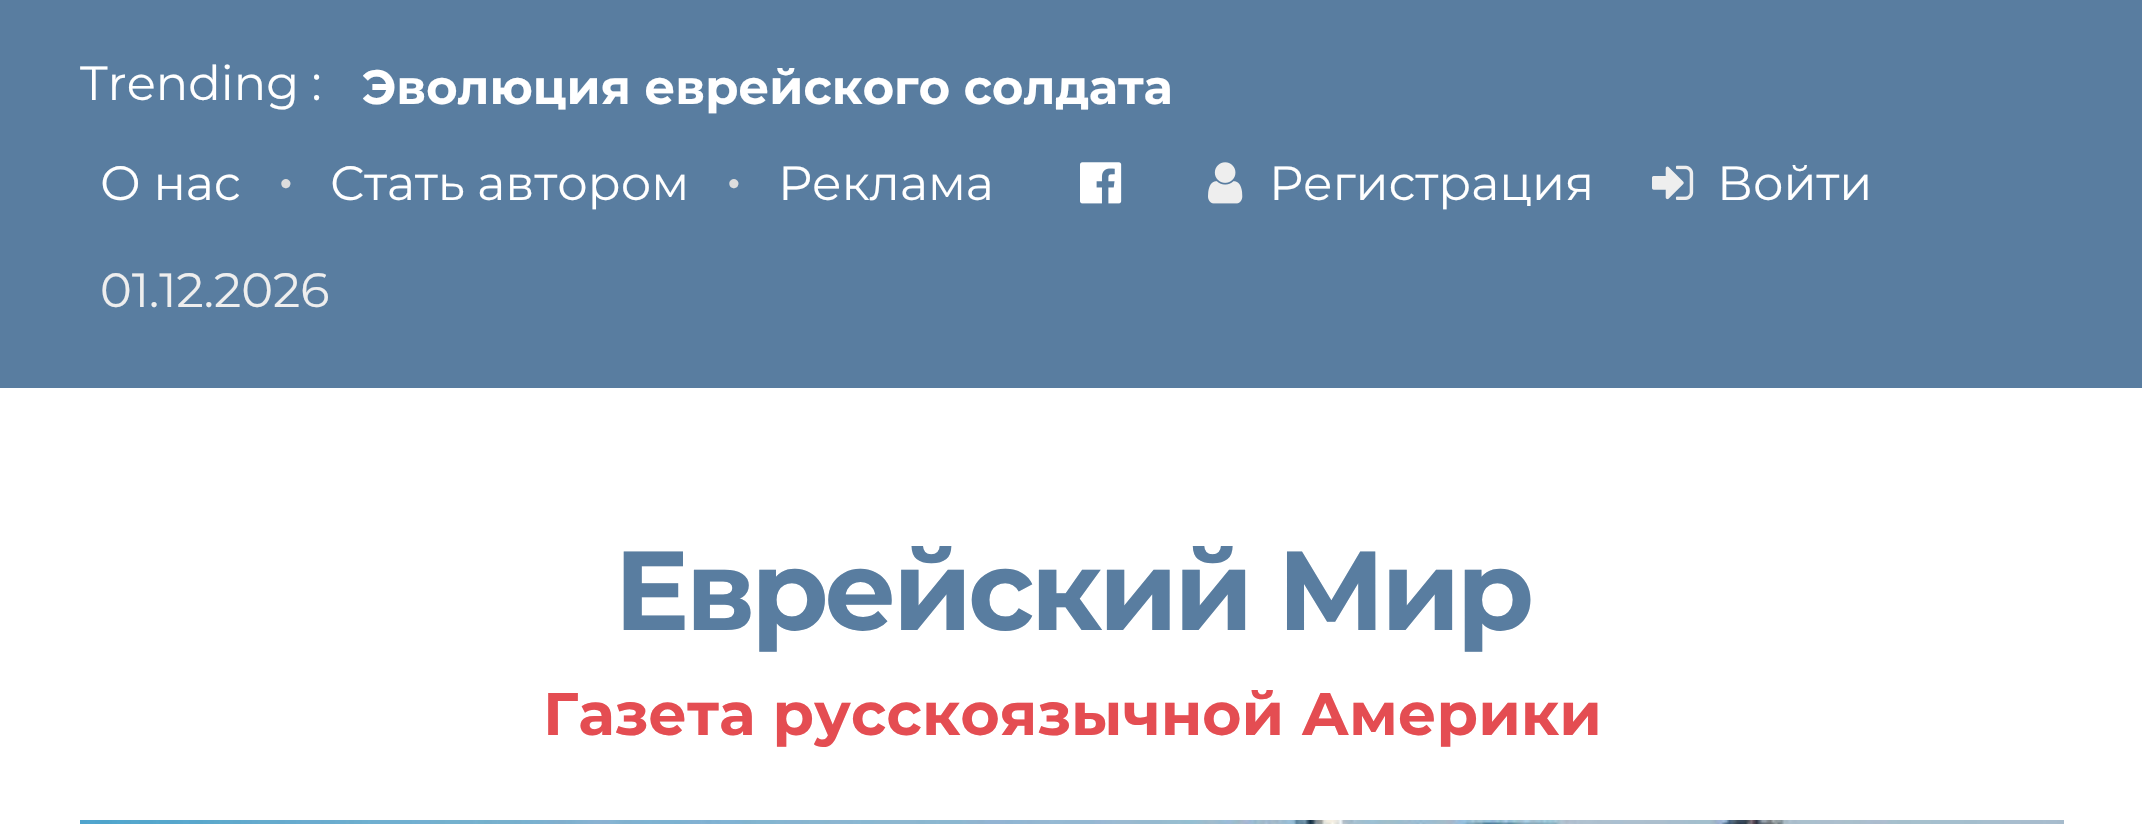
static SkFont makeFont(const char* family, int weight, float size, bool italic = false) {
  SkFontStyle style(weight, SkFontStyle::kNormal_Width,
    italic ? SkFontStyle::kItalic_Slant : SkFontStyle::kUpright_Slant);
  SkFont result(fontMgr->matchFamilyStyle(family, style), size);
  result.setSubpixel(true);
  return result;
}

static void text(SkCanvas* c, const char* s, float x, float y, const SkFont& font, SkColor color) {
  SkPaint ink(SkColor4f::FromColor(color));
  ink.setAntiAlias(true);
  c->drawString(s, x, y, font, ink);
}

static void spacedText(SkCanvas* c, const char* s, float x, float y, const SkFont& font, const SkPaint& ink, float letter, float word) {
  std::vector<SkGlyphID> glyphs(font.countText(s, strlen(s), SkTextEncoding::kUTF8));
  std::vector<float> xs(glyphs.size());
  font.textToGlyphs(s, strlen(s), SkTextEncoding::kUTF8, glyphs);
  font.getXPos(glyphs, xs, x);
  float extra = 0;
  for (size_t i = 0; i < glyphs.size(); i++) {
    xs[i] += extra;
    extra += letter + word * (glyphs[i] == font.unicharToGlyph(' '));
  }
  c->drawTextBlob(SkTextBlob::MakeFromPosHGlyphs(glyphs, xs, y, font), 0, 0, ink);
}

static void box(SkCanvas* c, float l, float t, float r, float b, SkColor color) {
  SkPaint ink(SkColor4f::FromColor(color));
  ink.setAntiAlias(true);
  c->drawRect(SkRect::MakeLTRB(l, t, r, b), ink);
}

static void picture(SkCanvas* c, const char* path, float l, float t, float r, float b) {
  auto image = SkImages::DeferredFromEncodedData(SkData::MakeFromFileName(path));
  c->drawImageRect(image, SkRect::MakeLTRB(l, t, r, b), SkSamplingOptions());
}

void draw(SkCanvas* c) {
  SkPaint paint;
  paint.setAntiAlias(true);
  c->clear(0xffffffff);
  box(c, 0, 0, 2142, 388, 0xff597da0);
  SkFont face1 = makeFont("Montserrat", 400, 48);
  text(c, "Trending :", 80, 100, face1, 0xffffffff);
  SkFont face2 = makeFont("Montserrat", 700, 48);
  text(c, "Эволюция еврейского солдата", 362, 104, face2, 0xffffffff);
  text(c, "О нас", 100, 200, face1, 0xffffffff);
  SkFont face3 = makeFont("Montserrat", 400, 60);
  text(c, "•", 277, 200, face3, 0xffdddddd);
  text(c, "Стать автором", 330, 200, face1, 0xffffffff);
  text(c, "•", 725, 200, face3, 0xffdddddd);
  text(c, "Реклама", 778, 200, face1, 0xffffffff);
  picture(c, "img_01.png", 1080, 162, 1122, 204);
  picture(c, "img_02.png", 1208, 162, 1243, 204);
  text(c, "Регистрация", 1269, 200, face1, 0xffffffff);
  picture(c, "img_03.png", 1652, 165, 1694, 200);
  text(c, "Войти", 1717, 200, face1, 0xffffffff);
  text(c, "01.12.2026", 100, 307, face1, 0xffeeeeee);
  SkFont face4 = makeFont("Montserrat", 700, 112);
  paint.setColor(0xff597da0);
  spacedText(c, "Еврейский Мир", 614, 630, face4, paint, -4, 0);
  SkFont face5 = makeFont("Montserrat", 700, 60);
  text(c, "Газета русскоязычной Америки", 543, 735, face5, 0xffe44d52);
  picture(c, "img_04.png", 80, 820, 2064, 824);
}
